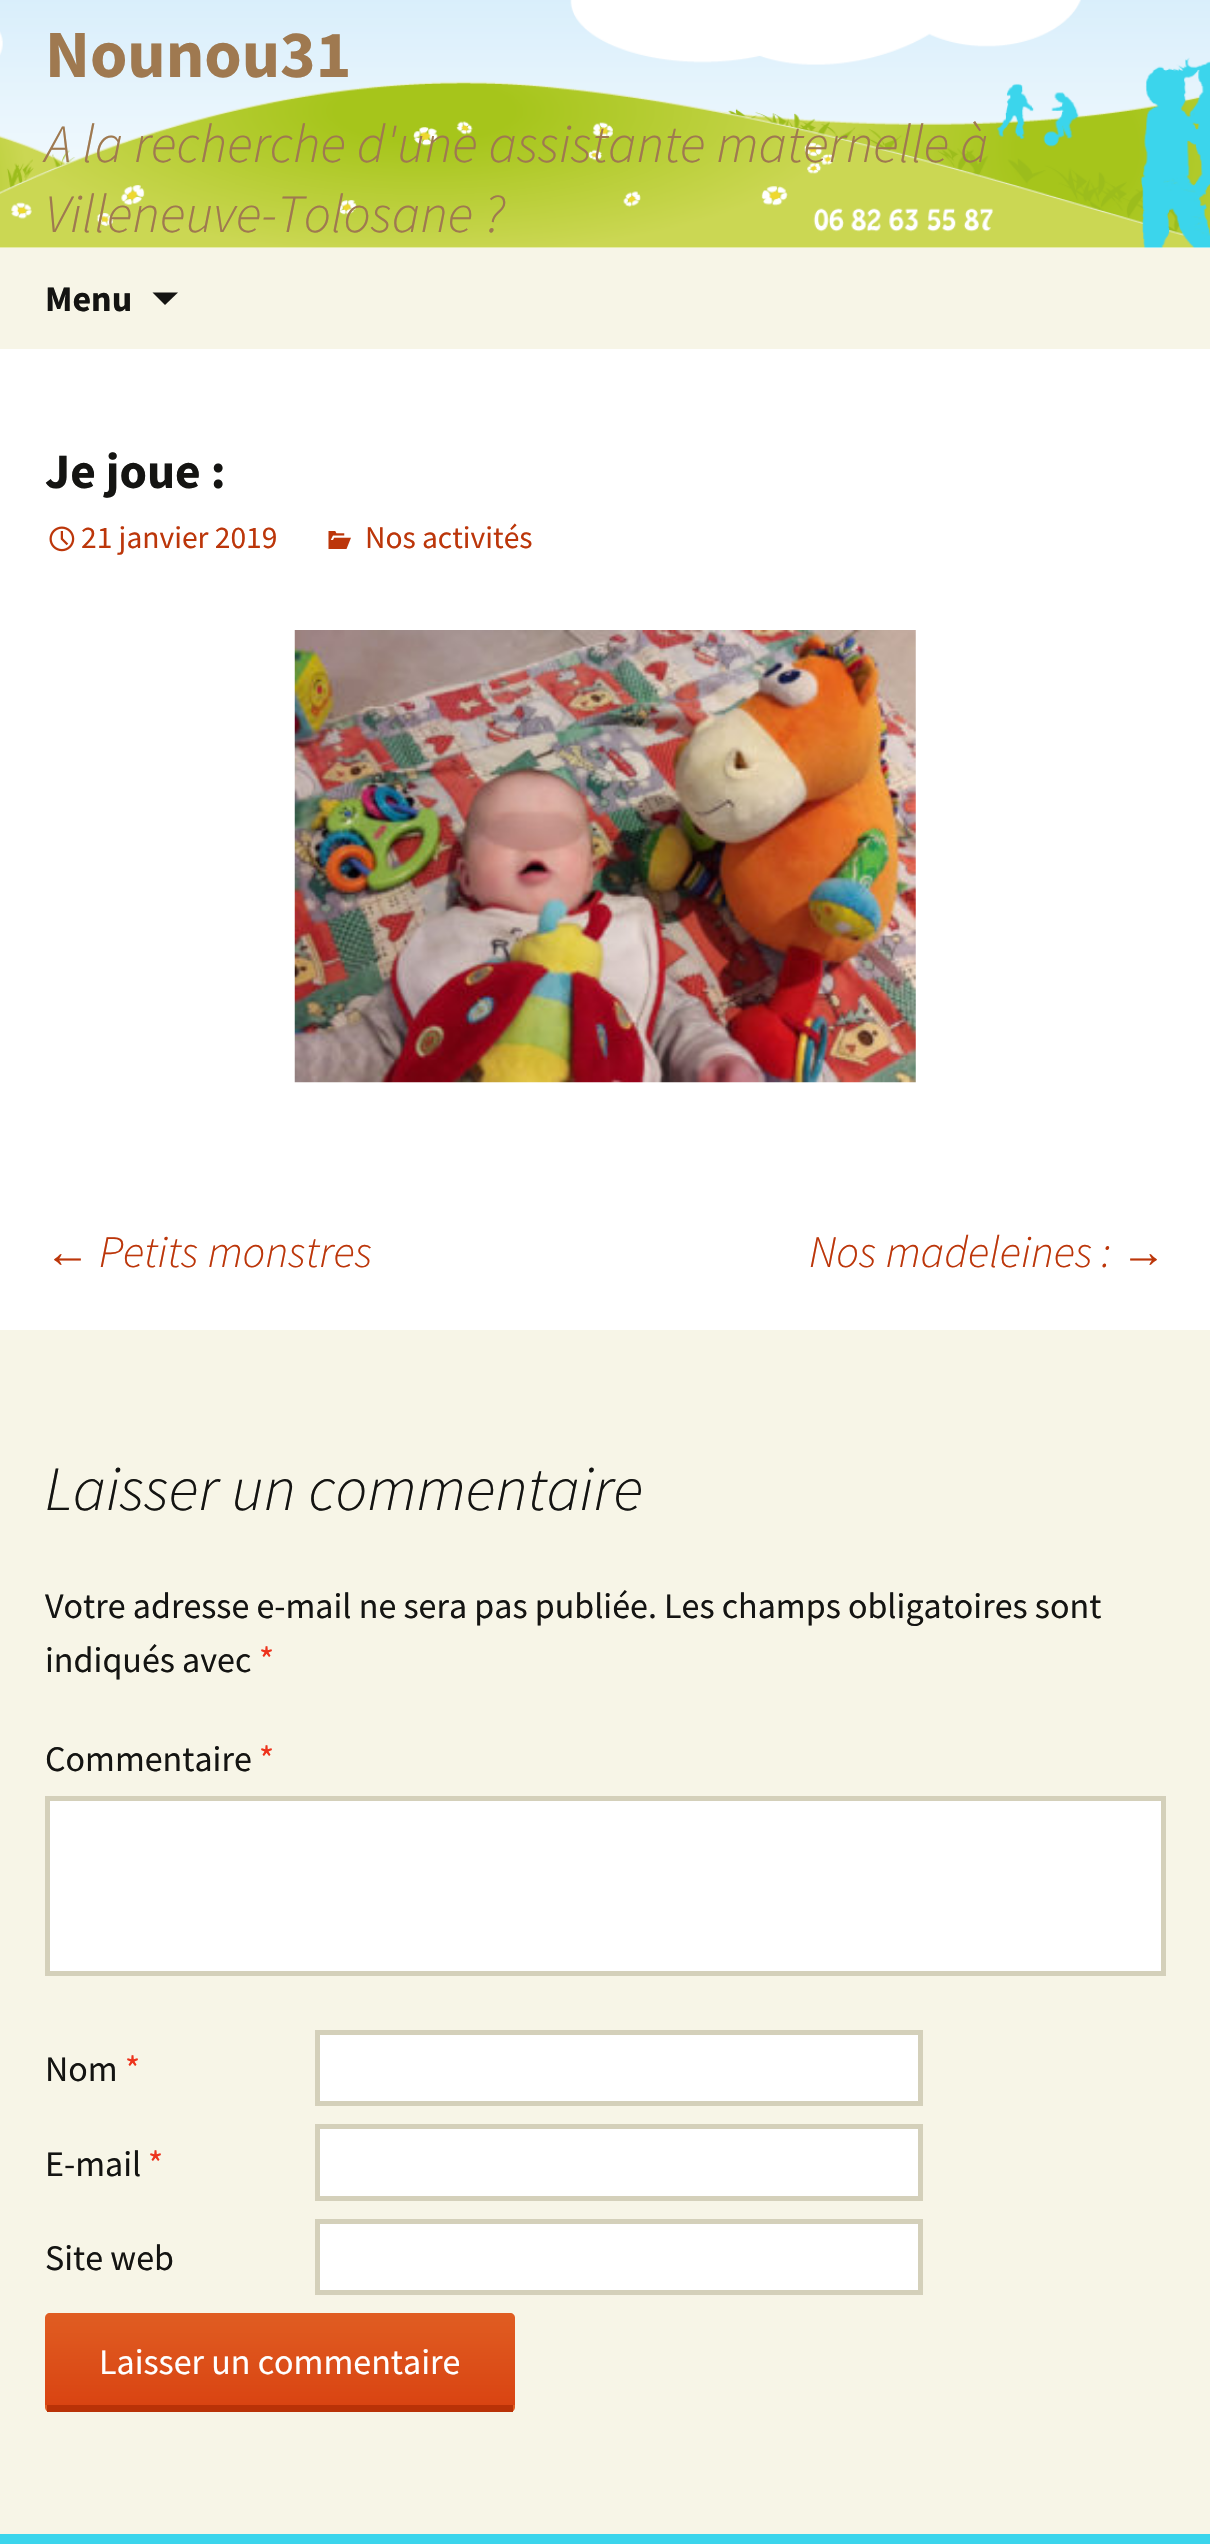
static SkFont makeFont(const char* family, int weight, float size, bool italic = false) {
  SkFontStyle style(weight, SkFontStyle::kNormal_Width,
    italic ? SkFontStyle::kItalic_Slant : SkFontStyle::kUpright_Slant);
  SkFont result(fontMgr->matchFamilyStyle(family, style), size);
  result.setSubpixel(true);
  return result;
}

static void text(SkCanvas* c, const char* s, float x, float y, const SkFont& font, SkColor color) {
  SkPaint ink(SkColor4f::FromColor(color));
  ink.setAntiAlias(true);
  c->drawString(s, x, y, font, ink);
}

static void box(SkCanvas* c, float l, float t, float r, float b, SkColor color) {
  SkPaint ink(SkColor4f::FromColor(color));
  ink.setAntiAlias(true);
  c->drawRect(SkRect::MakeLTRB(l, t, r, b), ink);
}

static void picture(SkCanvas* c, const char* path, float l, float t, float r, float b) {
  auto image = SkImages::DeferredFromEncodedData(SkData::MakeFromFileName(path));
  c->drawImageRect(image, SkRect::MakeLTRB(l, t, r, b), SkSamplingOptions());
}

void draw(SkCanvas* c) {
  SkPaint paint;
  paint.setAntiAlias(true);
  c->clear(0xffffffff);
  picture(c, "img_01.png", 0, 0, 1210, 248);
  SkFont face1 = makeFont("Source Sans Pro", 700, 67.5f);
  text(c, "Nounou31", 45, 77, face1, 0xff9f7950);
  SkFont face2 = makeFont("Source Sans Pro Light", 300, 54, true);
  text(c, "A la recherche d'une assistante maternelle à", 45, 162, face2, 0xff9f7950);
  text(c, "Villeneuve-Tolosane ?", 45, 232, face2, 0xff9f7950);
  box(c, 0, 248, 1210, 349, 0xfff7f5e7);
  SkFont face3 = makeFont("Source Sans Pro", 700, 36);
  text(c, "Menu", 45, 311, face3, 0xff141412);
  paint.setColor(0xff141412);
  c->drawPath(SkPathBuilder().moveTo(152.5f, 292.5f).lineTo(165, 305).lineTo(178, 292.5f).close().detach(), paint);
  SkFont face4 = makeFont("Source Sans Pro", 700, 49.5f);
  text(c, "Je joue :", 45, 488, face4, 0xff141412);
  picture(c, "img_02.png", 49, 526, 75, 552);
  SkFont face5 = makeFont("Source Sans Pro", 400, 31.5f);
  text(c, "21 janvier 2019", 81, 548, face5, 0xffbc360a);
  picture(c, "img_03.png", 328, 531, 351, 549);
  text(c, "Nos activités", 365, 548, face5, 0xffbc360a);
  picture(c, "img_04.png", 294, 630, 916, 1083);
  SkFont face6 = makeFont("Liberation Sans", 400, 45, true);
  text(c, "←", 45, 1267, face6, 0xffbc360a);
  SkFont face7 = makeFont("Source Sans Pro Light", 300, 45, true);
  text(c, "Petits monstres", 99, 1267, face7, 0xffbc360a);
  text(c, "Nos madeleines :", 809, 1267, face7, 0xffbc360a);
  text(c, "→", 1121, 1267, face6, 0xffbc360a);
  box(c, 0, 1330, 1210, 2534, 0xfff7f5e7);
  SkFont face8 = makeFont("Source Sans Pro Light", 300, 63, true);
  text(c, "Laisser un commentaire", 45, 1510, face8, 0xff141412);
  SkFont face9 = makeFont("Source Sans Pro", 400, 36);
  text(c, "Votre adresse e-mail ne sera pas publiée. Les champs obligatoires sont", 45, 1618, face9, 0xff141412);
  text(c, "indiqués avec", 45, 1672, face9, 0xff141412);
  text(c, "*", 259, 1672, face9, 0xffed331c);
  text(c, "Commentaire", 45, 1771, face9, 0xff141412);
  text(c, "*", 259, 1771, face9, 0xffed331c);
  paint.setColor(0xffffffff);
  c->drawRect(SkRect::MakeLTRB(47.5f, 1798.5f, 1163.5f, 1973.5f), paint);
  paint.setStyle(SkPaint::kStroke_Style);
  paint.setStrokeWidth(5);
  paint.setColor(0xffd4d0ba);
  c->drawRect(SkRect::MakeLTRB(47.5f, 1798.5f, 1163.5f, 1973.5f), paint);
  text(c, "Nom", 45, 2081, face9, 0xff141412);
  text(c, "*", 125, 2081, face9, 0xffed331c);
  paint.setStyle(SkPaint::kFill_Style);
  paint.setColor(0xffffffff);
  c->drawRect(SkRect::MakeLTRB(317.5f, 2032.5f, 920.5f, 2103.5f), paint);
  paint.setStyle(SkPaint::kStroke_Style);
  paint.setColor(0xffd4d0ba);
  c->drawRect(SkRect::MakeLTRB(317.5f, 2032.5f, 920.5f, 2103.5f), paint);
  text(c, "E-mail", 45, 2176, face9, 0xff141412);
  text(c, "*", 148, 2176, face9, 0xffed331c);
  paint.setStyle(SkPaint::kFill_Style);
  paint.setColor(0xffffffff);
  c->drawRect(SkRect::MakeLTRB(317.5f, 2126.5f, 920.5f, 2198.5f), paint);
  paint.setStyle(SkPaint::kStroke_Style);
  paint.setColor(0xffd4d0ba);
  c->drawRect(SkRect::MakeLTRB(317.5f, 2126.5f, 920.5f, 2198.5f), paint);
  text(c, "Site web", 45, 2270, face9, 0xff141412);
  paint.setStyle(SkPaint::kFill_Style);
  paint.setColor(0xffffffff);
  c->drawRect(SkRect::MakeLTRB(317.5f, 2221.5f, 920.5f, 2292.5f), paint);
  paint.setStyle(SkPaint::kStroke_Style);
  paint.setColor(0xffd4d0ba);
  c->drawRect(SkRect::MakeLTRB(317.5f, 2221.5f, 920.5f, 2292.5f), paint);
  paint.setStyle(SkPaint::kFill_Style);
  {
    const SkColor colors[] = {0xffe05d22, 0xffd94412};
    const float stops[] = {0, 1};
    const SkPoint ends[] = {{280, 2313}, {280, 2405}};
    paint.setShader(SkGradientShader::MakeLinear(ends, colors, stops, 2, SkTileMode::kClamp));
    paint.setAlpha(255);
  }
  c->drawPath(SkPathBuilder().moveTo(50, 2313).lineTo(510, 2313).cubicTo(513, 2313, 515, 2315, 515, 2318).lineTo(515, 2405).lineTo(45, 2405).lineTo(45, 2318).cubicTo(45, 2315, 47, 2313, 50, 2313).close().detach(), paint);
  {
    const SkColor colors[] = {0xffe05d22, 0xffd94412};
    const float stops[] = {0, 1};
    const SkPoint ends[] = {{280, 2405}, {280, 2498}};
    paint.setShader(SkGradientShader::MakeLinear(ends, colors, stops, 2, SkTileMode::kClamp));
    paint.setAlpha(255);
  }
  c->drawPath(SkPathBuilder().moveTo(45, 2405).lineTo(515, 2405).lineTo(515, 2407).cubicTo(515, 2410, 513, 2412, 510, 2412).lineTo(50, 2412).cubicTo(47, 2412, 45, 2410, 45, 2407).close().detach(), paint);
  box(c, 47, 2405, 513, 2412, 0xffb93207);
  text(c, "Laisser un commentaire", 99, 2374, face9, 0xffffffff);
  box(c, 0, 2534, 1210, 2544, 0xff3bd5ec);
}
